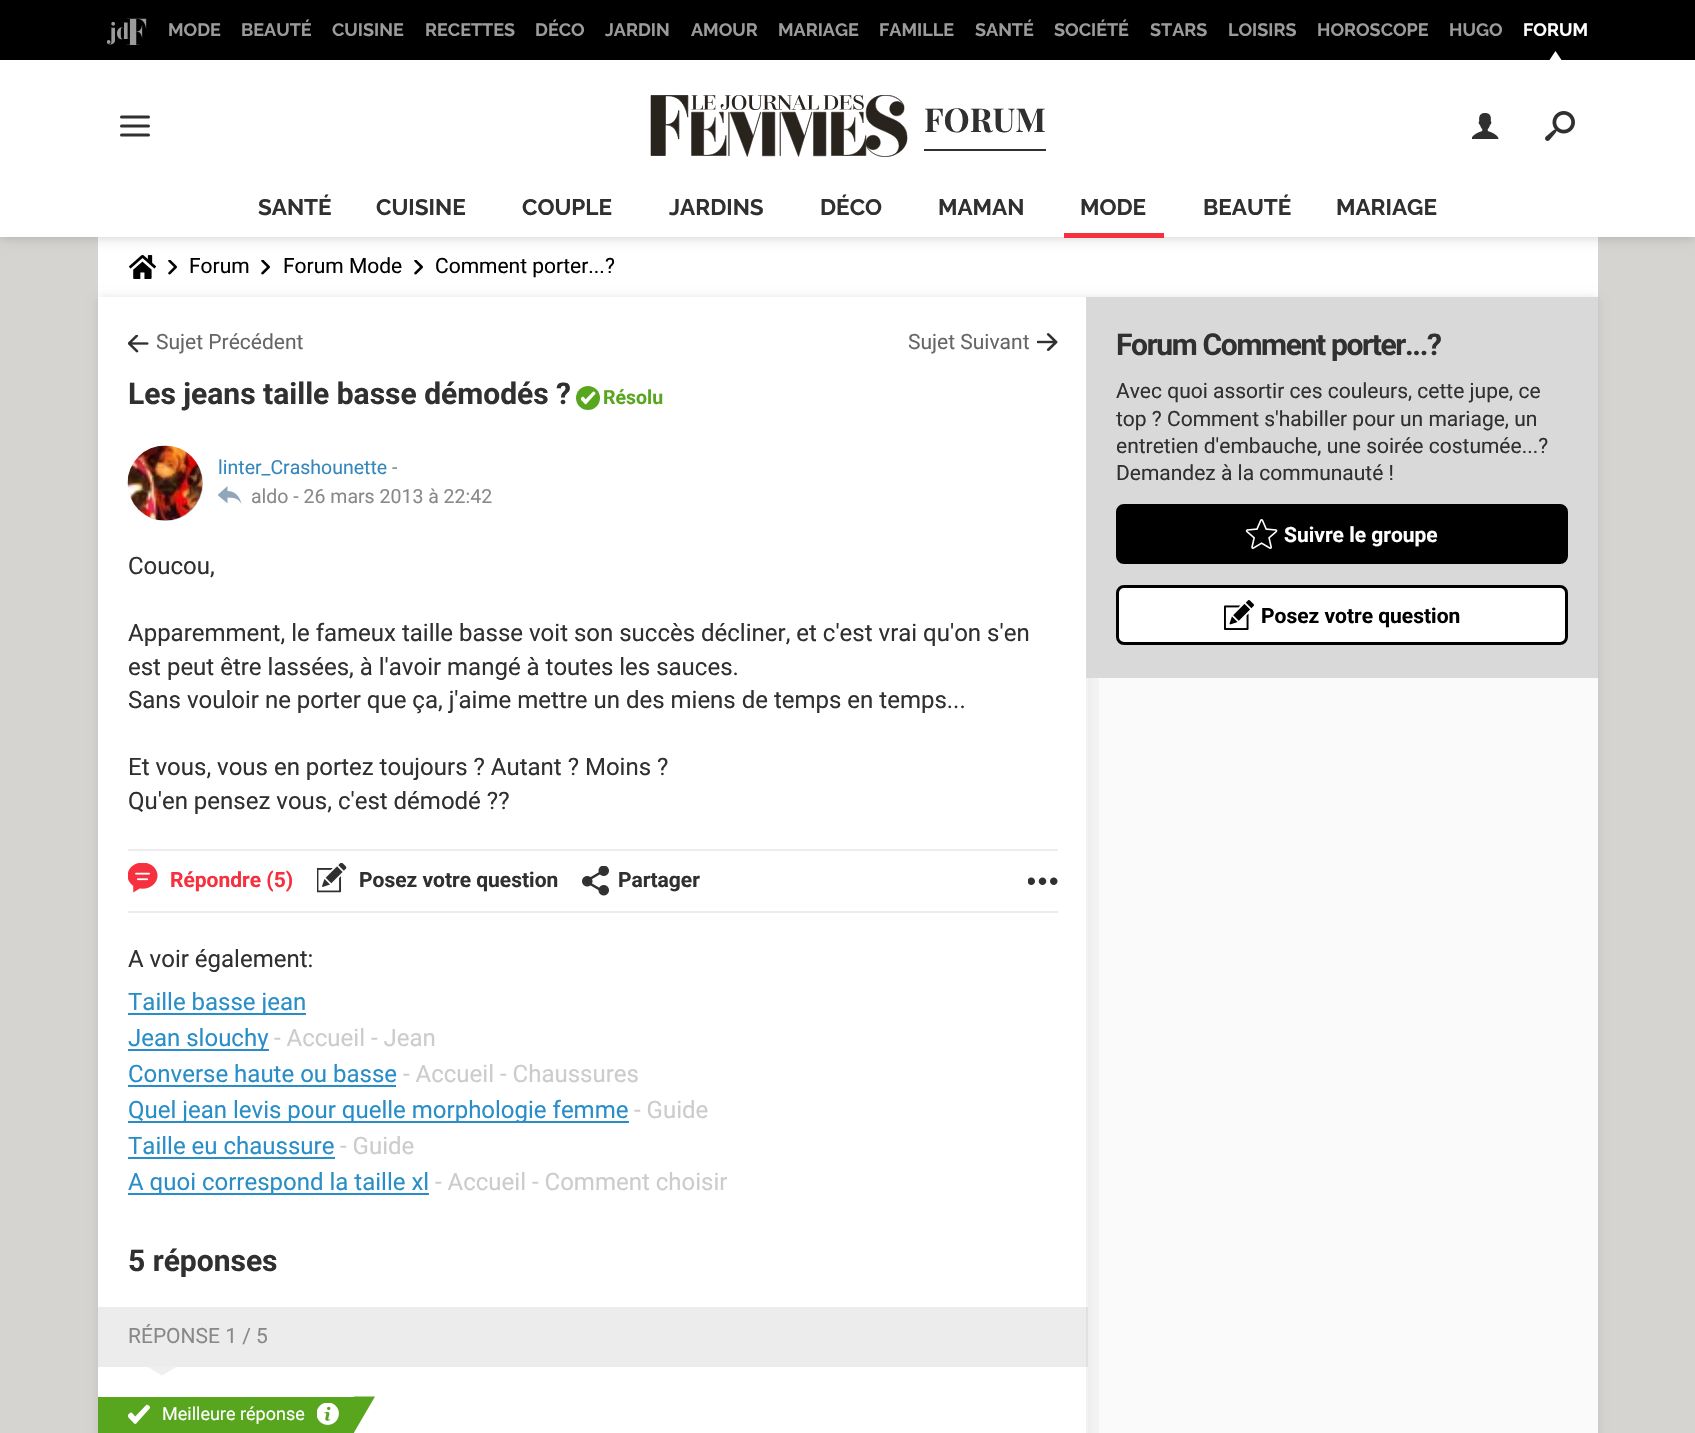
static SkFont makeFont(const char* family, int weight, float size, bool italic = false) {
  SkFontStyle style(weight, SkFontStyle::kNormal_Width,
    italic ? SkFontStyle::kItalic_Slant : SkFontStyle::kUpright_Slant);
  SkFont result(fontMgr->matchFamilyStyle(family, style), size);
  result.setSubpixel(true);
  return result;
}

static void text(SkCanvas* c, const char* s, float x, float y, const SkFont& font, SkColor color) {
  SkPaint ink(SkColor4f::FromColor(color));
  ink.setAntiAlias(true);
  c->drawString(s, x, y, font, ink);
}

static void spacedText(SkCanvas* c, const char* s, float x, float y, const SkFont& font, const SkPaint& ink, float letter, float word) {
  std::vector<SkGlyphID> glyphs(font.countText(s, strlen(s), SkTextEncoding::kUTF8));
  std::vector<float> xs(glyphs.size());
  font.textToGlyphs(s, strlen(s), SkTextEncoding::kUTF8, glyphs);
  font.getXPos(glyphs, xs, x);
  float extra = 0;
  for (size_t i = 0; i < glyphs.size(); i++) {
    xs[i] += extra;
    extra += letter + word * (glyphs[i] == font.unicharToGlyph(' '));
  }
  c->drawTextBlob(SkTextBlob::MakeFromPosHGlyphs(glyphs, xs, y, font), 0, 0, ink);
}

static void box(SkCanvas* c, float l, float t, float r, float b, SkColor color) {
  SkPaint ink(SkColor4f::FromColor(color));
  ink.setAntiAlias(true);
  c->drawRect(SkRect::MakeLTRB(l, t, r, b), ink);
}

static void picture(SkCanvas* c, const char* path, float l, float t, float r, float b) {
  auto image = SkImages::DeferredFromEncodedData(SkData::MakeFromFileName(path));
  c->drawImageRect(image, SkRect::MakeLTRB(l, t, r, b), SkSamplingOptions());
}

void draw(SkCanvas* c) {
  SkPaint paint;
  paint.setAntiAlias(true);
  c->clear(0xffd5d4d0);
  box(c, 98, 237, 1598, 297, 0xffffffff);
  picture(c, "img_05.png", 129, 255, 156, 279);
  paint.setColor(0x33000000);
  paint.setMaskFilter(SkMaskFilter::MakeBlur(kNormal_SkBlurStyle, 6));
  c->drawRect(SkRect::MakeLTRB(0, 0, 1695, 237), paint);
  paint.setMaskFilter(nullptr);
  box(c, 0, 60, 1695, 237, 0xffffffff);
  box(c, 0, 0, 1695, 60, 0xff000000);
  picture(c, "img_01.png", 107, 18, 147, 45);
  SkFont face1 = makeFont("Raleway", 700, 18);
  text(c, "MODE", 168, 36, face1, 0xff9b9b9b);
  text(c, "BEAUTÉ", 241, 36, face1, 0xff9b9b9b);
  text(c, "CUISINE", 332, 36, face1, 0xff9b9b9b);
  text(c, "RECETTES", 425, 36, face1, 0xff9b9b9b);
  text(c, "DÉCO", 535, 36, face1, 0xff9b9b9b);
  text(c, "JARDIN", 605, 36, face1, 0xff9b9b9b);
  text(c, "AMOUR", 691, 36, face1, 0xff9b9b9b);
  text(c, "MARIAGE", 778, 36, face1, 0xff9b9b9b);
  text(c, "FAMILLE", 879, 36, face1, 0xff9b9b9b);
  text(c, "SANTÉ", 975, 36, face1, 0xff9b9b9b);
  text(c, "SOCIÉTÉ", 1054, 36, face1, 0xff9b9b9b);
  text(c, "STARS", 1150, 36, face1, 0xff9b9b9b);
  text(c, "LOISIRS", 1228, 36, face1, 0xff9b9b9b);
  text(c, "HOROSCOPE", 1317, 36, face1, 0xff9b9b9b);
  text(c, "HUGO", 1449, 36, face1, 0xff9b9b9b);
  text(c, "FORUM", 1523, 36, face1, 0xffffffff);
  paint.setColor(0xffffffff);
  c->drawPath(SkPathBuilder().moveTo(1561.5f, 60).lineTo(1549.5f, 60).lineTo(1555.5f, 51).close().detach(), paint);
  paint.setStyle(SkPaint::kStroke_Style);
  paint.setStrokeWidth(3);
  paint.setStrokeCap(SkPaint::kRound_Cap);
  paint.setColor(0xff303030);
  c->drawPath(SkPathBuilder().moveTo(121.5f, 126).lineTo(148.5f, 126).moveTo(121.5f, 117).lineTo(148.5f, 117).moveTo(121.5f, 135).lineTo(148.5f, 135).detach(), paint);
  picture(c, "img_02.png", 650, 95, 908, 157);
  box(c, 924, 149, 1046, 151, 0xff303030);
  SkFont face2 = makeFont("Playfair Display", 700, 33);
  text(c, "FORUM", 924, 132, face2, 0xff303030);
  picture(c, "img_03.png", 1472, 113, 1499, 139);
  picture(c, "img_04.png", 1545, 111, 1575, 141);
  SkFont face3 = makeFont("Raleway", 700, 22.5f);
  text(c, "SANTÉ", 258, 215, face3, 0xff303030);
  text(c, "CUISINE", 376, 215, face3, 0xff303030);
  text(c, "COUPLE", 522, 215, face3, 0xff303030);
  text(c, "JARDINS", 669, 215, face3, 0xff303030);
  text(c, "DÉCO", 820, 215, face3, 0xff303030);
  text(c, "MAMAN", 938, 215, face3, 0xff303030);
  box(c, 1064, 233, 1164, 238, 0xfff6303e);
  text(c, "MODE", 1080, 215, face3, 0xff303030);
  text(c, "BEAUTÉ", 1203, 215, face3, 0xff303030);
  text(c, "MARIAGE", 1336, 215, face3, 0xff303030);
  picture(c, "img_06.png", 168, 260, 177, 275);
  SkFont face4 = makeFont("Roboto", 400, 21);
  text(c, "Forum", 189, 273, face4, 0xff000000);
  picture(c, "img_06.png", 261, 260, 270, 275);
  text(c, "Forum Mode", 283, 273, face4, 0xff000000);
  picture(c, "img_06.png", 414, 260, 423, 275);
  text(c, "Comment porter...?", 435, 273, face4, 0xff000000);
  paint.setStyle(SkPaint::kFill_Style);
  paint.setColor(0x1a000000);
  paint.setMaskFilter(SkMaskFilter::MakeBlur(kNormal_SkBlurStyle, 4.5f));
  c->drawRect(SkRect::MakeLTRB(98, 297, 1598, 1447), paint);
  paint.setMaskFilter(nullptr);
  box(c, 98, 297, 1088, 1433, 0xffffffff);
  picture(c, "img_07.png", 128, 335, 149, 353);
  text(c, "Sujet Précédent", 156, 349, face4, 0xff666666);
  text(c, "Sujet Suivant", 908, 349, face4, 0xff666666);
  picture(c, "img_08.png", 1037, 333, 1058, 351);
  SkFont face5 = makeFont("Roboto", 700, 30);
  text(c, "Les jeans taille basse démodés ?", 128, 404, face5, 0xff303030);
  paint.setColor(0xff58a61e);
  c->drawCircle(588, 398, 12, paint);
  picture(c, "img_09.png", 581, 391, 596, 405);
  SkFont face6 = makeFont("Roboto", 700, 19.5f);
  text(c, "Résolu", 603, 404, face6, 0xff58a61e);
  paint.setColor(0xffb0becb);
  c->drawCircle(165.5f, 483.5f, 37.5f, paint);
  picture(c, "img_10.png", 127, 445, 203, 521);
  SkFont face7 = makeFont("Roboto", 400, 19.5f);
  text(c, "linter_Crashounette", 218, 474, face7, 0xff3487bc);
  text(c, "-", 392, 474, face7, 0xff898989);
  picture(c, "img_11.png", 218, 486, 242, 504);
  text(c, "aldo - 26 mars 2013 à 22:42", 251, 503, face7, 0xff898989);
  SkFont face8 = makeFont("Roboto", 400, 24);
  text(c, "Coucou,", 128, 574, face8, 0xff303030);
  text(c, "Apparemment, le fameux taille basse voit son succès décliner, et c'est vrai qu'on s'en", 128, 641, face8, 0xff303030);
  text(c, "est peut être lassées, à l'avoir mangé à toutes les sauces.", 128, 675, face8, 0xff303030);
  text(c, "Sans vouloir ne porter que ça, j'aime mettre un des miens de temps en temps...", 128, 708, face8, 0xff303030);
  text(c, "Et vous, vous en portez toujours ? Autant ? Moins ?", 128, 775, face8, 0xff303030);
  text(c, "Qu'en pensez vous, c'est démodé ?\077", 128, 809, face8, 0xff303030);
  box(c, 128, 849, 1058, 851, 0xffececec);
  box(c, 128, 911, 1058, 913, 0xffececec);
  picture(c, "img_12.png", 128, 863, 158, 893);
  SkFont face9 = makeFont("Roboto", 700, 21);
  text(c, "Répondre (5)", 170, 887, face9, 0xfff6303e);
  picture(c, "img_13.png", 317, 863, 347, 893);
  text(c, "Posez votre question", 359, 887, face9, 0xff303030);
  picture(c, "img_14.png", 582, 866, 609, 896);
  text(c, "Partager", 618, 887, face9, 0xff303030);
  picture(c, "img_15.png", 1028, 877, 1058, 885);
  text(c, "A voir également:", 128, 967, face8, 0xff303030);
  box(c, 128, 1013, 306, 1015, 0xff298ec8);
  text(c, "Taille basse jean", 128, 1010, face8, 0xff298ec8);
  box(c, 128, 1049, 269, 1051, 0xff298ec8);
  text(c, "Jean slouchy", 128, 1046, face8, 0xff298ec8);
  text(c, "- Accueil - Jean", 274, 1046, face8, 0xffcccccc);
  text(c, "Converse haute ou basse", 128, 1082, face8, 0xff298ec8);
  box(c, 128, 1085, 396, 1087, 0xff298ec8);
  text(c, "- Accueil - Chaussures", 403, 1082, face8, 0xffcccccc);
  box(c, 128, 1121, 629, 1123, 0xff298ec8);
  text(c, "Quel jean levis pour quelle morphologie femme", 128, 1118, face8, 0xff298ec8);
  text(c, "- Guide", 634, 1118, face8, 0xffcccccc);
  text(c, "Taille eu chaussure", 128, 1154, face8, 0xff298ec8);
  box(c, 128, 1157, 335, 1159, 0xff298ec8);
  text(c, "- Guide", 340, 1154, face8, 0xffcccccc);
  box(c, 128, 1193, 429, 1195, 0xff298ec8);
  text(c, "A quoi correspond la taille xl", 128, 1190, face8, 0xff298ec8);
  text(c, "- Accueil - Comment choisir", 435, 1190, face8, 0xffcccccc);
  text(c, "5 réponses", 128, 1271, face5, 0xff303030);
  box(c, 98, 1307, 1088, 1367, 0xffececec);
  text(c, "RÉPONSE 1 / 5", 128, 1343, face4, 0xff898989);
  paint.setColor(0xffeef0ef);
  c->drawPath(SkPathBuilder().moveTo(147, 1366.5f).lineTo(177, 1366.5f).lineTo(162, 1375.5f).close().detach(), paint);
  box(c, 98, 1397, 354, 1433, 0xff58a61e);
  picture(c, "img_16.png", 128, 1404, 150, 1424);
  SkFont face10 = makeFont("Roboto", 400, 18);
  text(c, "Meilleure réponse", 162, 1420, face10, 0xffffffff);
  picture(c, "img_17.png", 317, 1403, 339, 1425);
  paint.setColor(0xff58a61e);
  c->drawPath(SkPathBuilder().moveTo(354, 1396.5f).lineTo(375, 1396.5f).lineTo(354, 1432.5f).close().detach(), paint);
  box(c, 1088, 678, 1598, 1433, 0xfffafafa);
  box(c, 1086, 297, 1598, 678, 0xffd9d9d9);
  paint.setColor(0xff303030);
  spacedText(c, "Forum Comment porter...?", 1116, 355, face5, paint, -1.35f, 0);
  text(c, "Avec quoi assortir ces couleurs, cette jupe, ce", 1116, 398, face4, 0xff303030);
  text(c, "top ? Comment s'habiller pour un mariage, un", 1116, 426, face4, 0xff303030);
  text(c, "entretien d'embauche, une soirée costumée...?", 1116, 453, face4, 0xff303030);
  text(c, "Demandez à la communauté !", 1116, 480, face4, 0xff303030);
  paint.setColor(0xff000000);
  c->drawRoundRect(SkRect::MakeLTRB(1117.5f, 505.5f, 1566.5f, 562.5f), 6.5f, 6.5f, paint);
  paint.setStyle(SkPaint::kStroke_Style);
  paint.setStrokeCap(SkPaint::kButt_Cap);
  c->drawRoundRect(SkRect::MakeLTRB(1117.5f, 505.5f, 1566.5f, 562.5f), 6.5f, 6.5f, paint);
  picture(c, "img_18.png", 1245, 519, 1278, 549);
  text(c, "Suivre le groupe", 1284, 542, face9, 0xffffffff);
  paint.setStyle(SkPaint::kFill_Style);
  paint.setColor(0xffffffff);
  c->drawRoundRect(SkRect::MakeLTRB(1117.5f, 586.5f, 1566.5f, 643.5f), 6.5f, 6.5f, paint);
  paint.setStyle(SkPaint::kStroke_Style);
  paint.setColor(0xff000000);
  c->drawRoundRect(SkRect::MakeLTRB(1117.5f, 586.5f, 1566.5f, 643.5f), 6.5f, 6.5f, paint);
  picture(c, "img_19.png", 1224, 600, 1254, 630);
  text(c, "Posez votre question", 1261, 623, face9, 0xff000000);
  paint.setStyle(SkPaint::kFill_Style);
  {
    const SkColor colors[] = {0x0d000000, 0x00000000};
    const float stops[] = {0, 1};
    const SkPoint ends[] = {{1086, 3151}, {1109, 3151}};
    paint.setShader(SkGradientShader::MakeLinear(ends, colors, stops, 2, SkTileMode::kClamp));
    paint.setAlpha(255);
  }
  c->drawRect(SkRect::MakeLTRB(1086, 678, 1099, 1433), paint);
}
